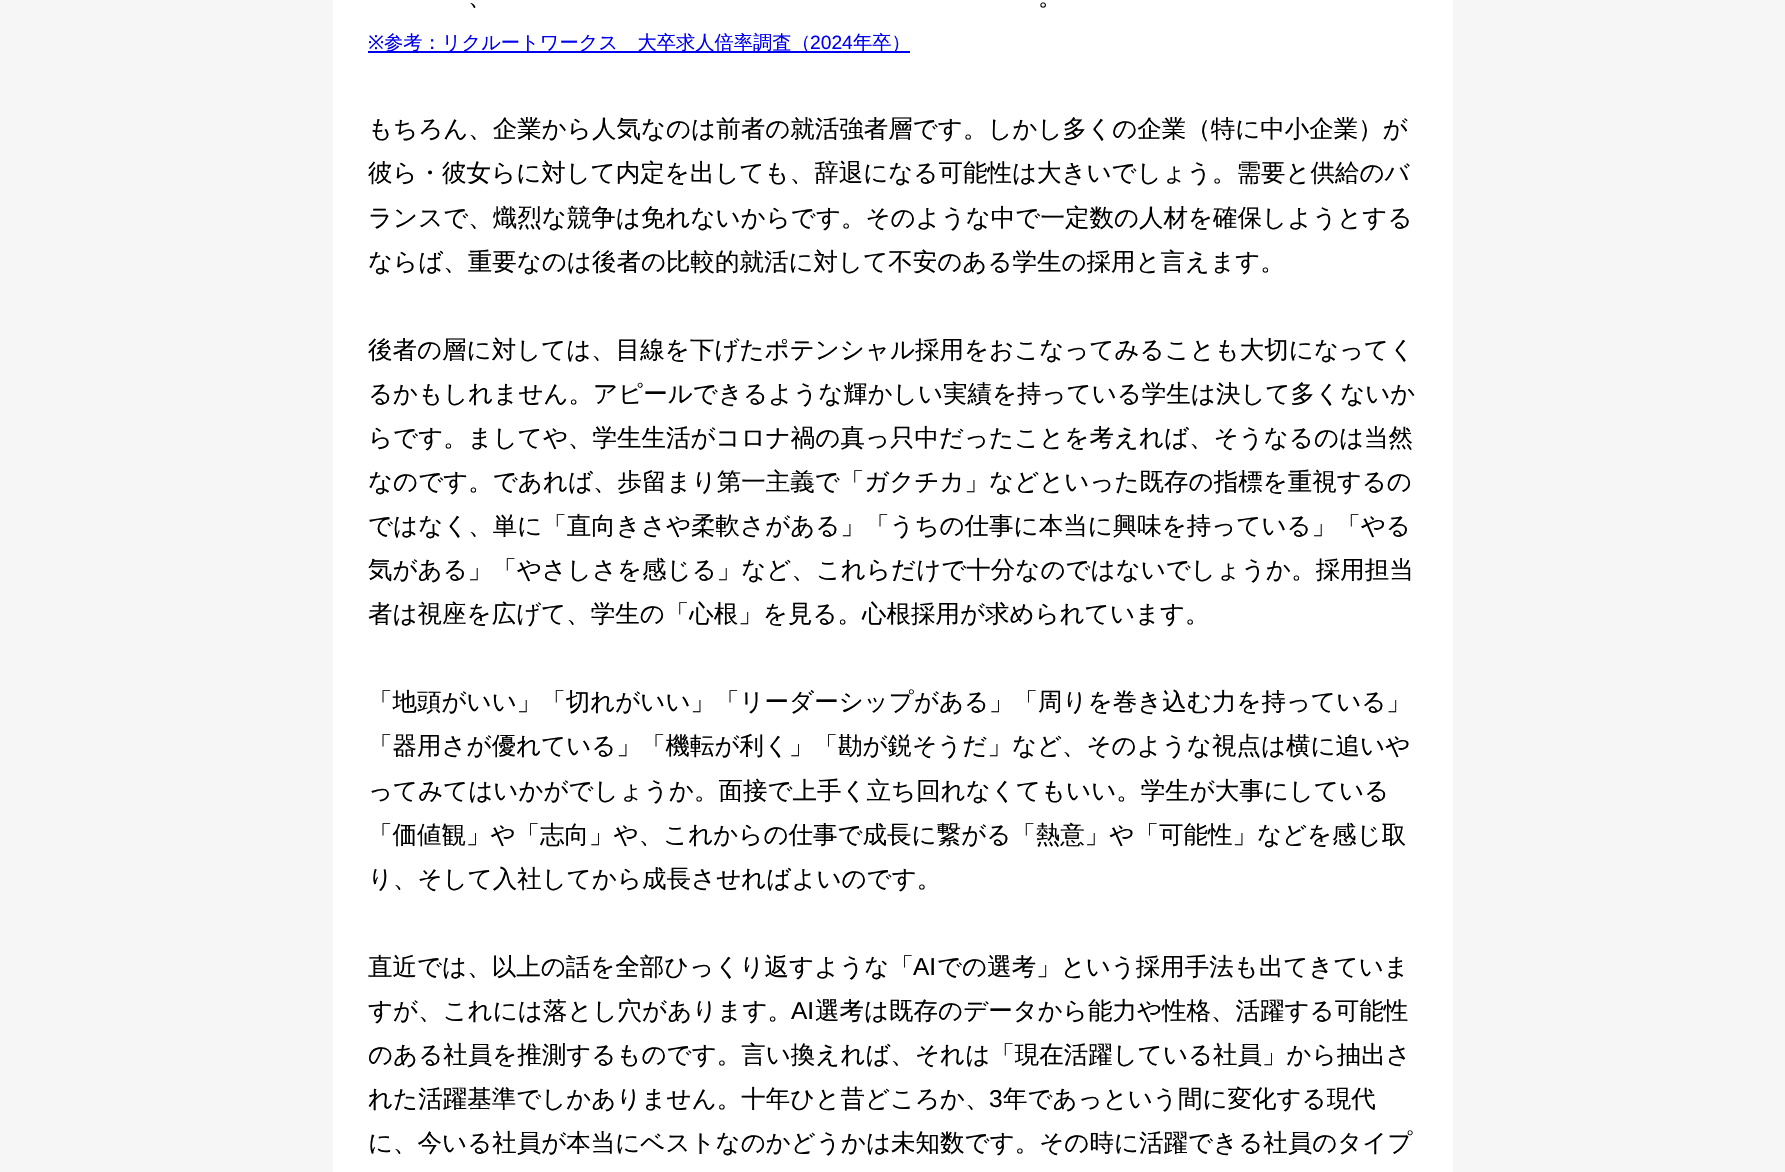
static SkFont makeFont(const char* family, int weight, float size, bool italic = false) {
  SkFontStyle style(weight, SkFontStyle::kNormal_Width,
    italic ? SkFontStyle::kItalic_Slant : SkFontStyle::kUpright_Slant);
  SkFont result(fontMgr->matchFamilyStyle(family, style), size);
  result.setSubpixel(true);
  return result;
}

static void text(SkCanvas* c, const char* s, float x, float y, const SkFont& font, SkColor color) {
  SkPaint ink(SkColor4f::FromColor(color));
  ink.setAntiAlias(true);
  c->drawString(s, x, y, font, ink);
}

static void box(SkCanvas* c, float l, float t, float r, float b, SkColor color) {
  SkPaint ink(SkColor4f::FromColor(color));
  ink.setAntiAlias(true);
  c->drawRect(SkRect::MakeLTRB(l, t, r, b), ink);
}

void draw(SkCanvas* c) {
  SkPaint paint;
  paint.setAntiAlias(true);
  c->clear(0xfff6f6f6);
  box(c, 333, 0, 1453, 1172, 0xffffffff);
  SkFont face1 = makeFont("WenQuanYi Zen Hei", 500, 24.5f);
  text(c, "、", 468, 5, face1, 0xff000000);
  text(c, "。", 1038, 5, face1, 0xff000000);
  SkFont face2 = makeFont("Noto Sans", 400, 19.25f);
  text(c, "※", 368, 49, face2, 0xff0000ee);
  box(c, 368, 51, 910, 53, 0xff0000ee);
  SkFont face3 = makeFont("WenQuanYi Zen Hei", 500, 19.25f);
  text(c, "参考：リクルートワークス　大卒求人倍率調査（", 384, 49, face3, 0xff0000ee);
  SkFont face4 = makeFont("Liberation Sans", 400, 19.25f);
  text(c, "2024", 810, 49, face4, 0xff0000ee);
  text(c, "年卒）", 853, 49, face3, 0xff0000ee);
  text(c, "もちろん、企業から人気なのは前者の就活強者層です。しかし多くの企業（特に中小企業）が", 368, 137, face1, 0xff000000);
  text(c, "彼ら・彼女らに対して内定を出しても、辞退になる可能性は大きいでしょう。需要と供給のバ", 368, 181, face1, 0xff000000);
  text(c, "ランスで、熾烈な競争は免れないからです。そのような中で一定数の人材を確保しようとする", 368, 226, face1, 0xff000000);
  text(c, "ならば、重要なのは後者の比較的就活に対して不安のある学生の採用と言えます。", 368, 270, face1, 0xff000000);
  text(c, "後者の層に対しては、目線を下げたポテンシャル採用をおこなってみることも大切になってく", 368, 358, face1, 0xff000000);
  text(c, "るかもしれません。アピールできるような輝かしい実績を持っている学生は決して多くないか", 368, 402, face1, 0xff000000);
  text(c, "らです。ましてや、学生生活がコロナ禍の真っ只中だったことを考えれば、そうなるのは当然", 368, 446, face1, 0xff000000);
  text(c, "なのです。であれば、歩留まり第一主義で「ガクチカ」などといった既存の指標を重視するの", 368, 490, face1, 0xff000000);
  text(c, "ではなく、単に「直向きさや柔軟さがある」「うちの仕事に本当に興味を持っている」「やる", 368, 534, face1, 0xff000000);
  text(c, "気がある」「やさしさを感じる」など、これらだけで十分なのではないでしょうか。採用担当", 368, 578, face1, 0xff000000);
  text(c, "者は視座を広げて、学生の「心根」を見る。心根採用が求められています。", 368, 622, face1, 0xff000000);
  text(c, "「地頭がいい」「切れがいい」「リーダーシップがある」「周りを巻き込む力を持っている」", 368, 710, face1, 0xff000000);
  text(c, "「器用さが優れている」「機転が利く」「勘が鋭そうだ」など、そのような視点は横に追いや", 368, 754, face1, 0xff000000);
  text(c, "ってみてはいかがでしょうか。面接で上手く立ち回れなくてもいい。学生が大事にしている", 368, 799, face1, 0xff000000);
  text(c, "「価値観」や「志向」や、これからの仕事で成長に繋がる「熱意」や「可能性」などを感じ取", 368, 843, face1, 0xff000000);
  text(c, "り、そして入社してから成長させればよいのです。", 368, 887, face1, 0xff000000);
  text(c, "直近では、以上の話を全部ひっくり返すような「", 368, 975, face1, 0xff000000);
  SkFont face5 = makeFont("Liberation Sans", 400, 24.5f);
  text(c, "AI", 913, 975, face5, 0xff000000);
  text(c, "での選考」という採用手法も出てきていま", 937, 975, face1, 0xff000000);
  text(c, "すが、これには落とし穴があります。", 368, 1019, face1, 0xff000000);
  text(c, "AI", 791, 1019, face5, 0xff000000);
  text(c, "選考は既存のデータから能力や性格、活躍する可能性", 815, 1019, face1, 0xff000000);
  text(c, "のある社員を推測するものです。言い換えれば、それは「現在活躍している社員」から抽出さ", 368, 1063, face1, 0xff000000);
  text(c, "れた活躍基準でしかありません。十年ひと昔どころか、", 368, 1107, face1, 0xff000000);
  text(c, "3", 989, 1107, face5, 0xff000000);
  text(c, "年であっという間に変化する現代", 1003, 1107, face1, 0xff000000);
  text(c, "に、今いる社員が本当にベストなのかどうかは未知数です。その時に活躍できる社員のタイプ", 368, 1151, face1, 0xff000000);
}
